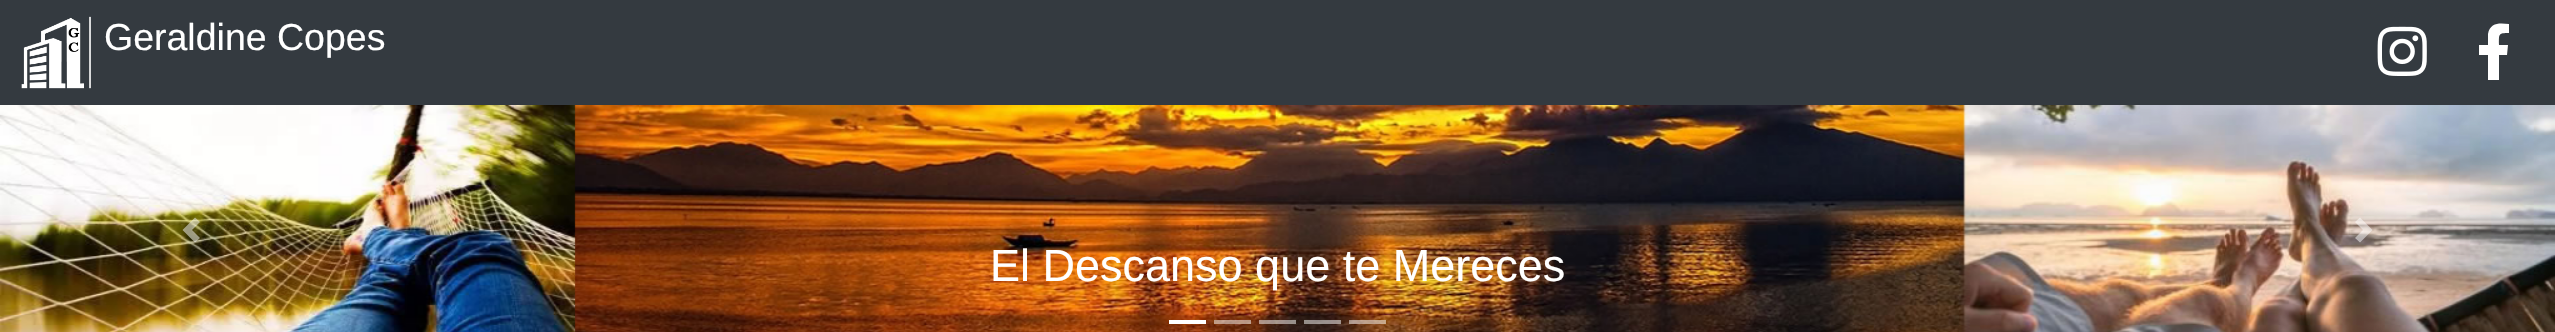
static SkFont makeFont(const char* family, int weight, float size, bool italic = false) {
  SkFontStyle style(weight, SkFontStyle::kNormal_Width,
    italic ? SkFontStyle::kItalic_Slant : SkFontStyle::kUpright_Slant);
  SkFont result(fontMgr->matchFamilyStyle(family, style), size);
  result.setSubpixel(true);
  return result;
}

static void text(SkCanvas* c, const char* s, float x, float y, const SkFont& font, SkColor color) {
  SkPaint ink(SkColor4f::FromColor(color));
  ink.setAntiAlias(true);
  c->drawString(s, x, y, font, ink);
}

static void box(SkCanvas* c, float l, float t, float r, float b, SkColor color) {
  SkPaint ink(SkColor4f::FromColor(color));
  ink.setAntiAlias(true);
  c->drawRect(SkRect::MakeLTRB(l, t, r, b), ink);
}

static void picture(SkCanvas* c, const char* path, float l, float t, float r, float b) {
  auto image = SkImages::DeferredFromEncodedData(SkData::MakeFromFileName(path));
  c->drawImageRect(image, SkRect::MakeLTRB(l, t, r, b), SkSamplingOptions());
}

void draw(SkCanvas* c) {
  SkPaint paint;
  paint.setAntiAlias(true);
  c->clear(0xff343a40);
  picture(c, "img_01.png", 21, 16, 91, 89);
  SkFont face1 = makeFont("Liberation Sans", 400, 37.5f);
  text(c, "Geraldine Copes", 104, 50, face1, 0xffffffff);
  picture(c, "img_02.png", 2377, 26, 2427, 76);
  paint.setColor(0xffffffff);
  c->drawPath(SkPathBuilder().moveTo(2507, 55).lineTo(2499, 55).lineTo(2499, 80).lineTo(2488, 80).lineTo(2488, 55).lineTo(2479, 55).lineTo(2479, 45).lineTo(2488, 45).lineTo(2488, 34).cubicTo(2490, 22, 2500, 23, 2509, 24).lineTo(2509, 33).cubicTo(2498, 33, 2499, 34, 2499, 45).lineTo(2508, 45).close().detach(), paint);
  picture(c, "img_03.png", 0, 105, 2555, 332);
  paint.setColor(0x80ffffff);
  c->drawPath(SkPathBuilder().moveTo(195, 217.5f).lineTo(182.5f, 230).lineTo(195, 242.5f).lineTo(200, 238).lineTo(192, 230).lineTo(200, 222).close().detach(), paint);
  c->drawPath(SkPathBuilder().moveTo(2360, 217.5f).lineTo(2355, 222).lineTo(2363, 230).lineTo(2355, 238).lineTo(2360, 242.5f).lineTo(2372.5f, 230).close().detach(), paint);
  SkFont face2 = makeFont("Liberation Sans", 400, 45);
  text(c, "El Descanso que te Mereces", 990, 281, face2, 0xffffffff);
  box(c, 1169, 320, 1206, 324, 0xffffffff);
  box(c, 1214, 320, 1251, 324, 0x80ffffff);
  box(c, 1259, 320, 1296, 324, 0x80ffffff);
  box(c, 1304, 320, 1341, 324, 0x80ffffff);
  box(c, 1349, 320, 1386, 324, 0x80ffffff);
}
